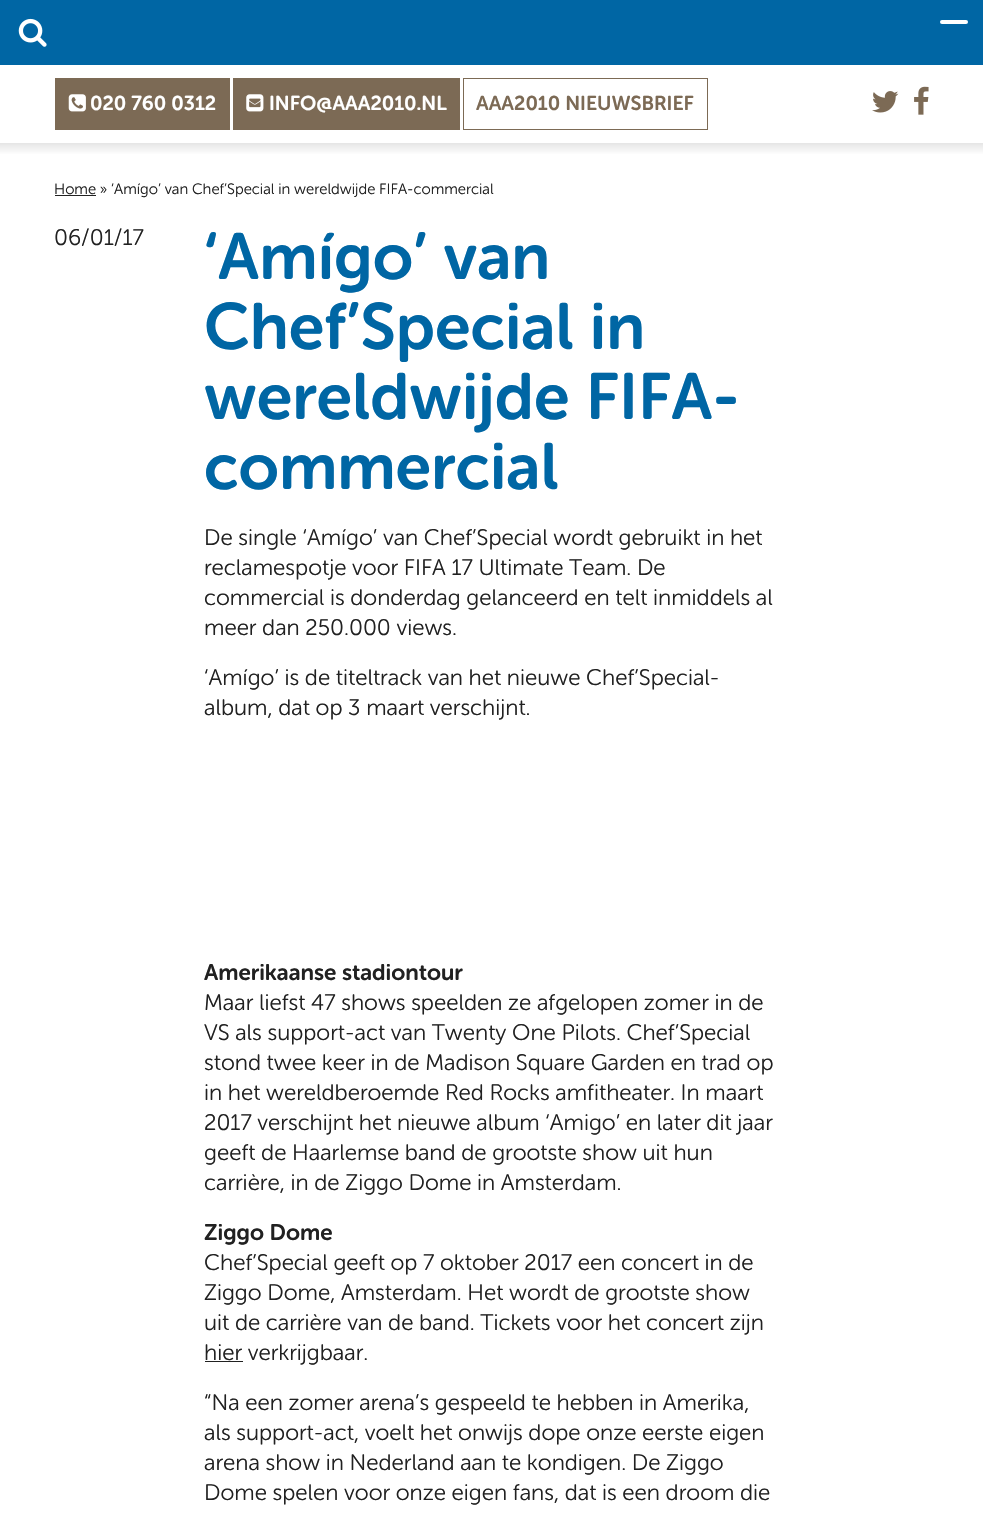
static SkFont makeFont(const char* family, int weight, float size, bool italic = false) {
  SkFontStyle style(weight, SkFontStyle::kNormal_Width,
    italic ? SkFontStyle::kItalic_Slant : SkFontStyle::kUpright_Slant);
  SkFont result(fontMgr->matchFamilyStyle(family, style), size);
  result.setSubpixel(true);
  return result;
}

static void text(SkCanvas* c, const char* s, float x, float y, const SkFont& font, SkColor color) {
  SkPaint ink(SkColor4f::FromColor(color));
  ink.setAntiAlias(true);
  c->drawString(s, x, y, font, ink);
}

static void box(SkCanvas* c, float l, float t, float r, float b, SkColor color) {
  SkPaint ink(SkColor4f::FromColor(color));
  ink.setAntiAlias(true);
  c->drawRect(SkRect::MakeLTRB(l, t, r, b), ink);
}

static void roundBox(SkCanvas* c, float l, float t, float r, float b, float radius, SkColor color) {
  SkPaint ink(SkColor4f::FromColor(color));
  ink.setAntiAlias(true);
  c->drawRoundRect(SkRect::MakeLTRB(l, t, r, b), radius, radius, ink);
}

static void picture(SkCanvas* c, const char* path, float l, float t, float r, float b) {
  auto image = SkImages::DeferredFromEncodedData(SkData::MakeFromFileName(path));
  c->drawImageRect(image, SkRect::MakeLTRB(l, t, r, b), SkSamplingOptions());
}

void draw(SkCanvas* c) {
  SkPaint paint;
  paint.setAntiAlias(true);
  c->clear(0xffffffff);
  box(c, 0, 0, 983, 65, 0xff0066a4);
  roundBox(c, 940, 20, 968, 24, 2, 0xffffffff);
  picture(c, "img_01.png", 18, 18, 47, 47);
  box(c, 55, 78, 230, 130, 0xff7c6a55);
  picture(c, "img_02.png", 68, 94, 86, 112);
  SkFont face1 = makeFont("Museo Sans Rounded", 600, 20);
  text(c, "020 760 0312", 90, 110, face1, 0xffffffff);
  box(c, 233, 78, 460, 130, 0xff7c6a55);
  picture(c, "img_03.png", 246, 94, 264, 112);
  text(c, "INFO@AAA2010.NL", 269, 110, face1, 0xffffffff);
  paint.setStyle(SkPaint::kStroke_Style);
  paint.setStrokeWidth(1);
  paint.setColor(0xff7c6a55);
  c->drawRect(SkRect::MakeLTRB(463.5f, 78.5f, 707.5f, 129.5f), paint);
  text(c, "AAA2010 NIEUWSBRIEF", 476, 110, face1, 0xff7c6a55);
  picture(c, "img_04.png", 872, 91, 899, 113);
  picture(c, "img_05.png", 914, 86, 929, 115);
  paint.setStyle(SkPaint::kFill_Style);
  {
    const SkColor colors[] = {0xffe3e3e3, 0xffffffff};
    const float stops[] = {0, 1};
    const SkPoint ends[] = {{492, 142}, {492, 155}};
    paint.setShader(SkGradientShader::MakeLinear(ends, colors, stops, 2, SkTileMode::kClamp));
    paint.setAlpha(255);
  }
  c->drawRect(SkRect::MakeLTRB(0, 143, 983, 154), paint);
  box(c, 55, 195, 96, 196, 0xff212121);
  SkFont face2 = makeFont("Museo Sans Rounded", 300, 15);
  text(c, "Home » ‘Amígo’ van Chef’Special in wereldwijde FIFA-commercial", 54, 194, face2, 0xff212121);
  SkFont face3 = makeFont("Museo Sans Rounded", 300, 22.5f);
  text(c, "06/01/17", 54, 245, face3, 0xff212121);
  SkFont face4 = makeFont("Museo Sans Rounded", 600, 65);
  text(c, "‘Amígo’ van", 204, 279, face4, 0xff0066a4);
  text(c, "Chef’Special in", 204, 349, face4, 0xff0066a4);
  text(c, "wereldwijde FIFA-", 204, 419, face4, 0xff0066a4);
  text(c, "commercial", 204, 489, face4, 0xff0066a4);
  text(c, "De single ‘Amígo’ van Chef’Special wordt gebruikt in het", 204, 545, face3, 0xff212121);
  text(c, "reclamespotje voor FIFA 17 Ultimate Team. De", 204, 575, face3, 0xff212121);
  text(c, "commercial is donderdag gelanceerd en telt inmiddels al", 204, 605, face3, 0xff212121);
  text(c, "meer dan 250.000 views.", 204, 635, face3, 0xff212121);
  text(c, "‘Amígo’ is de titeltrack van het nieuwe Chef’Special-", 204, 685, face3, 0xff212121);
  text(c, "album, dat op 3 maart verschijnt.", 204, 715, face3, 0xff212121);
  SkFont face5 = makeFont("Museo Sans Rounded", 600, 22.5f);
  text(c, "Amerikaanse stadiontour", 204, 980, face5, 0xff212121);
  text(c, "Maar liefst 47 shows speelden ze afgelopen zomer in de", 204, 1010, face3, 0xff212121);
  text(c, "VS als support-act van Twenty One Pilots. Chef’Special", 204, 1040, face3, 0xff212121);
  text(c, "stond twee keer in de Madison Square Garden en trad op", 204, 1070, face3, 0xff212121);
  text(c, "in het wereldberoemde Red Rocks amfitheater. In maart", 204, 1100, face3, 0xff212121);
  text(c, "2017 verschijnt het nieuwe album ‘Amigo’ en later dit jaar", 204, 1130, face3, 0xff212121);
  text(c, "geeft de Haarlemse band de grootste show uit hun", 204, 1160, face3, 0xff212121);
  text(c, "carrière, in de Ziggo Dome in Amsterdam.", 204, 1190, face3, 0xff212121);
  text(c, "Ziggo Dome", 204, 1240, face5, 0xff212121);
  text(c, "Chef’Special geeft op 7 oktober 2017 een concert in de", 204, 1270, face3, 0xff212121);
  text(c, "Ziggo Dome, Amsterdam. Het wordt de grootste show", 204, 1300, face3, 0xff212121);
  text(c, "uit de carrière van de band. Tickets voor het concert zijn", 204, 1330, face3, 0xff212121);
  box(c, 205, 1361, 243, 1362, 0xff212121);
  text(c, "hier verkrijgbaar.", 204, 1360, face3, 0xff212121);
  text(c, "“Na een zomer arena’s gespeeld te hebben in Amerika,", 204, 1410, face3, 0xff212121);
  text(c, "als support-act, voelt het onwijs dope onze eerste eigen", 204, 1440, face3, 0xff212121);
  text(c, "arena show in Nederland aan te kondigen. De Ziggo", 204, 1470, face3, 0xff212121);
  text(c, "Dome spelen voor onze eigen fans, dat is een droom die", 204, 1500, face3, 0xff212121);
}
